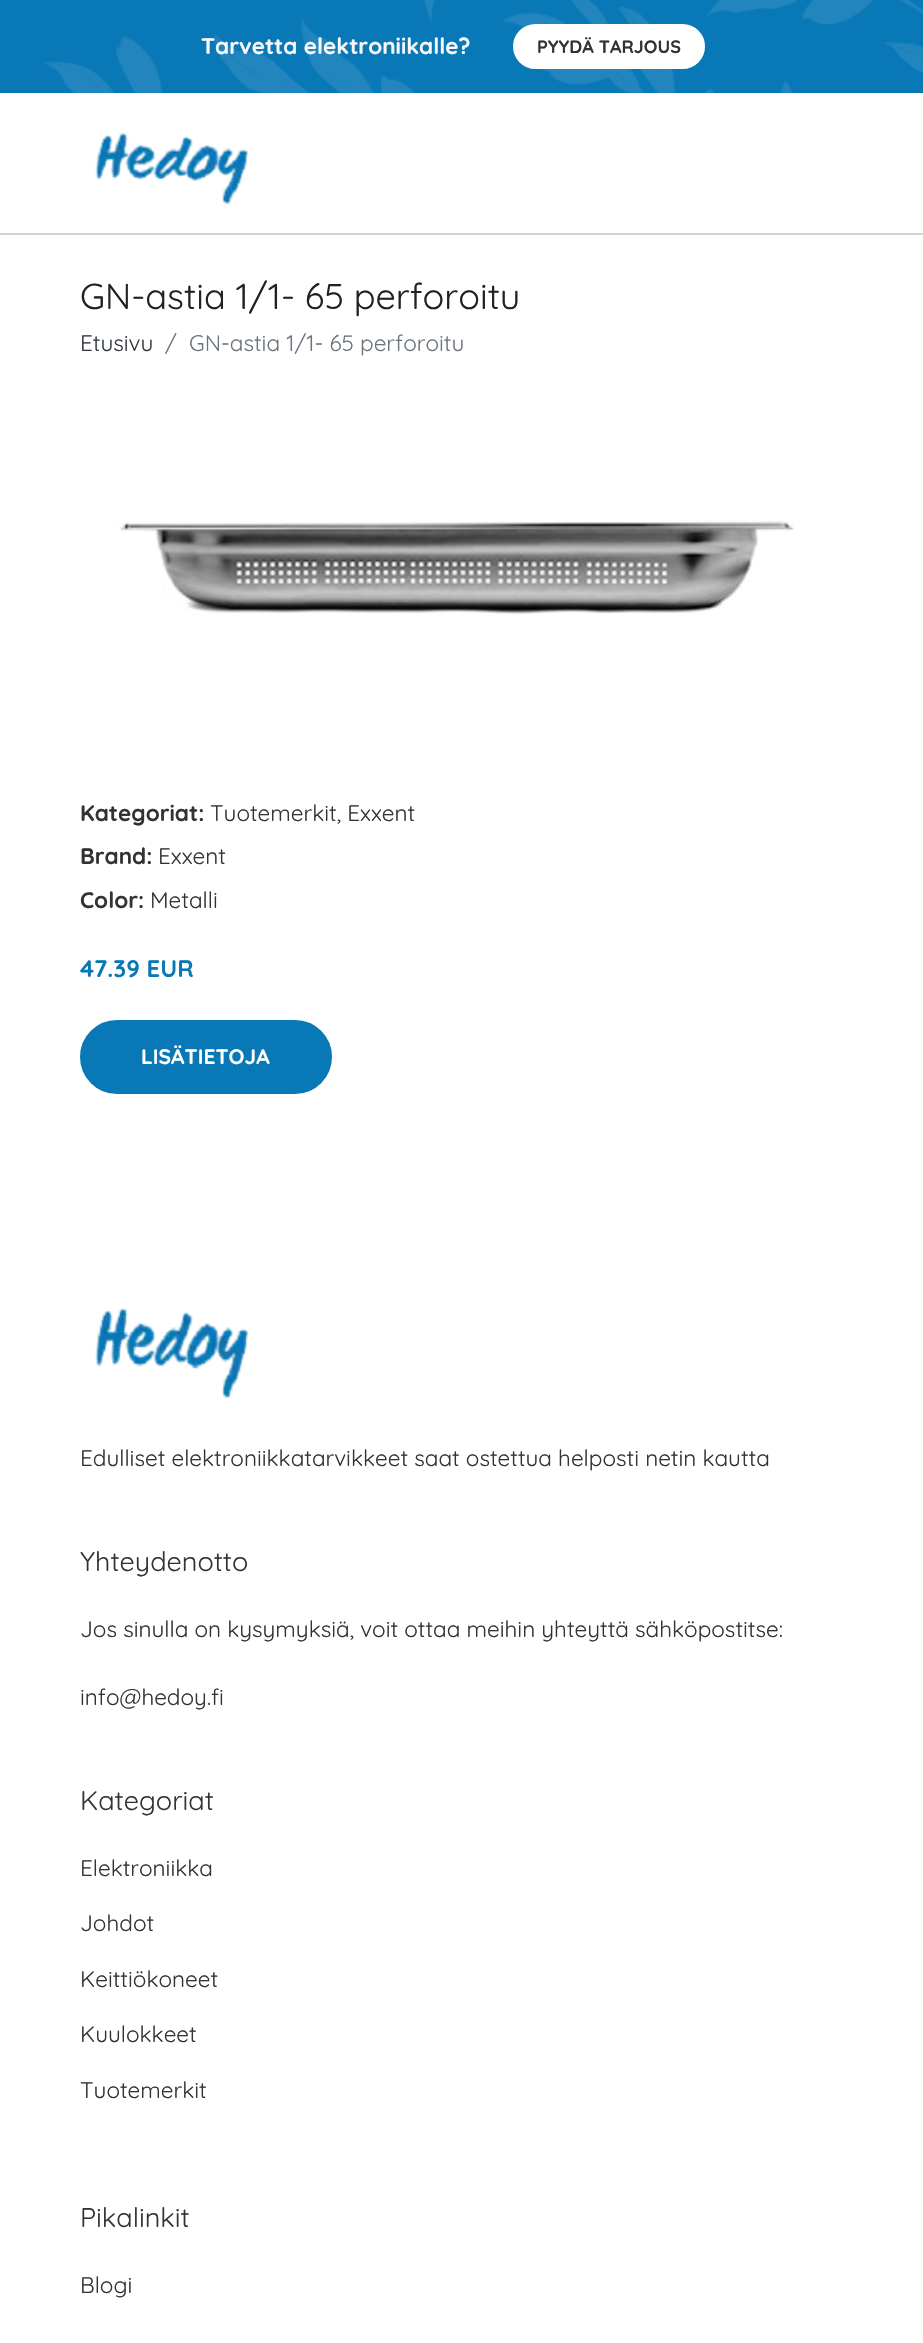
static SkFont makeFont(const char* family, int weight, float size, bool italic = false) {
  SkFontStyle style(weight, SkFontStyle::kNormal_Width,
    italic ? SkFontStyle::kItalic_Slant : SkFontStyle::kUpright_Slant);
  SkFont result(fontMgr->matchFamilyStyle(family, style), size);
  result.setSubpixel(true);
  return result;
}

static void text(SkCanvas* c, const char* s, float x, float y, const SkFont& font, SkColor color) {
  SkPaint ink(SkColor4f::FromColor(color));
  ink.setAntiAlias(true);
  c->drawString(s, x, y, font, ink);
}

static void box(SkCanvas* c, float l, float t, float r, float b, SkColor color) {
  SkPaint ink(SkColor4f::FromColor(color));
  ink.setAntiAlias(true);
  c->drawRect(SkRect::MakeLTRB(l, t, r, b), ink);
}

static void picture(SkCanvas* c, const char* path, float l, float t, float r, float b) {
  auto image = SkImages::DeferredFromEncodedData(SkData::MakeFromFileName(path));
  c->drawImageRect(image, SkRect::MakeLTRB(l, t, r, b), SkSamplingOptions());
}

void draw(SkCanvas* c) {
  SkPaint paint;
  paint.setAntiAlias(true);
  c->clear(0xffffffff);
  box(c, 0, 233, 923, 235, 0xffd1d1d1);
  box(c, 0, 0, 44, 93, 0xff0978b6);
  picture(c, "img_01.png", 44, 0, 923, 93);
  SkFont face1 = makeFont("Quicksand", 700, 22.5f);
  text(c, "Tarvetta elektroniikalle?", 201, 54, face1, 0xfff8f9fa);
  paint.setColor(0xffffffff);
  c->drawRoundRect(SkRect::MakeLTRB(514, 25, 704, 68), 21.5f, 21.5f, paint);
  paint.setStyle(SkPaint::kStroke_Style);
  paint.setStrokeWidth(2);
  c->drawRoundRect(SkRect::MakeLTRB(514, 25, 704, 68), 21.5f, 21.5f, paint);
  SkFont face2 = makeFont("Quicksand", 700, 18);
  text(c, "PYYDÄ TARJOUS", 537, 53, face2, 0xff333333);
  picture(c, "img_02.png", 95, 133, 249, 205);
  SkFont face3 = makeFont("Quicksand", 400, 36);
  text(c, "GN-astia 1/1- 65 perforoitu", 80, 309, face3, 0xff222222);
  SkFont face4 = makeFont("Quicksand", 400, 22.5f);
  text(c, "Etusivu", 80, 351, face4, 0xff343a40);
  text(c, "/", 165, 351, face4, 0xff6c757d);
  text(c, "GN-astia 1/1- 65 perforoitu", 189, 351, face4, 0xff6c757d);
  picture(c, "img_03.png", 118, 520, 794, 615);
  text(c, "Kategoriat:", 80, 821, face1, 0xff333333);
  text(c, "Tuotemerkit, Exxent", 210, 821, face4, 0xff333333);
  text(c, "Brand:", 80, 864, face1, 0xff333333);
  text(c, "Exxent", 158, 864, face4, 0xff333333);
  text(c, "Color:", 80, 908, face1, 0xff333333);
  text(c, "Metalli", 150, 908, face4, 0xff333333);
  SkFont face5 = makeFont("Quicksand", 700, 24);
  text(c, "47.39 EUR", 80, 977, face5, 0xff0978b6);
  paint.setStyle(SkPaint::kFill_Style);
  paint.setColor(0xff0978b6);
  c->drawRoundRect(SkRect::MakeLTRB(81, 1021, 331, 1093), 36, 36, paint);
  paint.setStyle(SkPaint::kStroke_Style);
  c->drawRoundRect(SkRect::MakeLTRB(81, 1021, 331, 1093), 36, 36, paint);
  SkFont face6 = makeFont("Quicksand", 700, 21);
  text(c, "LISÄTIETOJA", 141, 1064, face6, 0xffffffff);
  picture(c, "img_04.png", 95, 1308, 249, 1399);
  text(c, "Edulliset elektroniikkatarvikkeet saat ostettua helposti netin kautta", 80, 1466, face4, 0xff333333);
  SkFont face7 = makeFont("Quicksand", 400, 27);
  text(c, "Yhteydenotto", 80, 1571, face7, 0xff333333);
  text(c, "Jos sinulla on kysymyksiä, voit ottaa meihin yhteyttä sähköpostitse:", 80, 1637, face4, 0xff333333);
  text(c, "info@hedoy.fi", 80, 1705, face4, 0xff333333);
  text(c, "Kategoriat", 80, 1810, face7, 0xff333333);
  text(c, "Elektroniikka", 80, 1876, face4, 0xff333333);
  text(c, "Johdot", 80, 1931, face4, 0xff333333);
  text(c, "Keittiökoneet", 80, 1987, face4, 0xff333333);
  text(c, "Kuulokkeet", 80, 2042, face4, 0xff333333);
  text(c, "Tuotemerkit", 80, 2098, face4, 0xff333333);
  text(c, "Pikalinkit", 80, 2227, face7, 0xff333333);
  text(c, "Blogi", 80, 2293, face4, 0xff333333);
}
